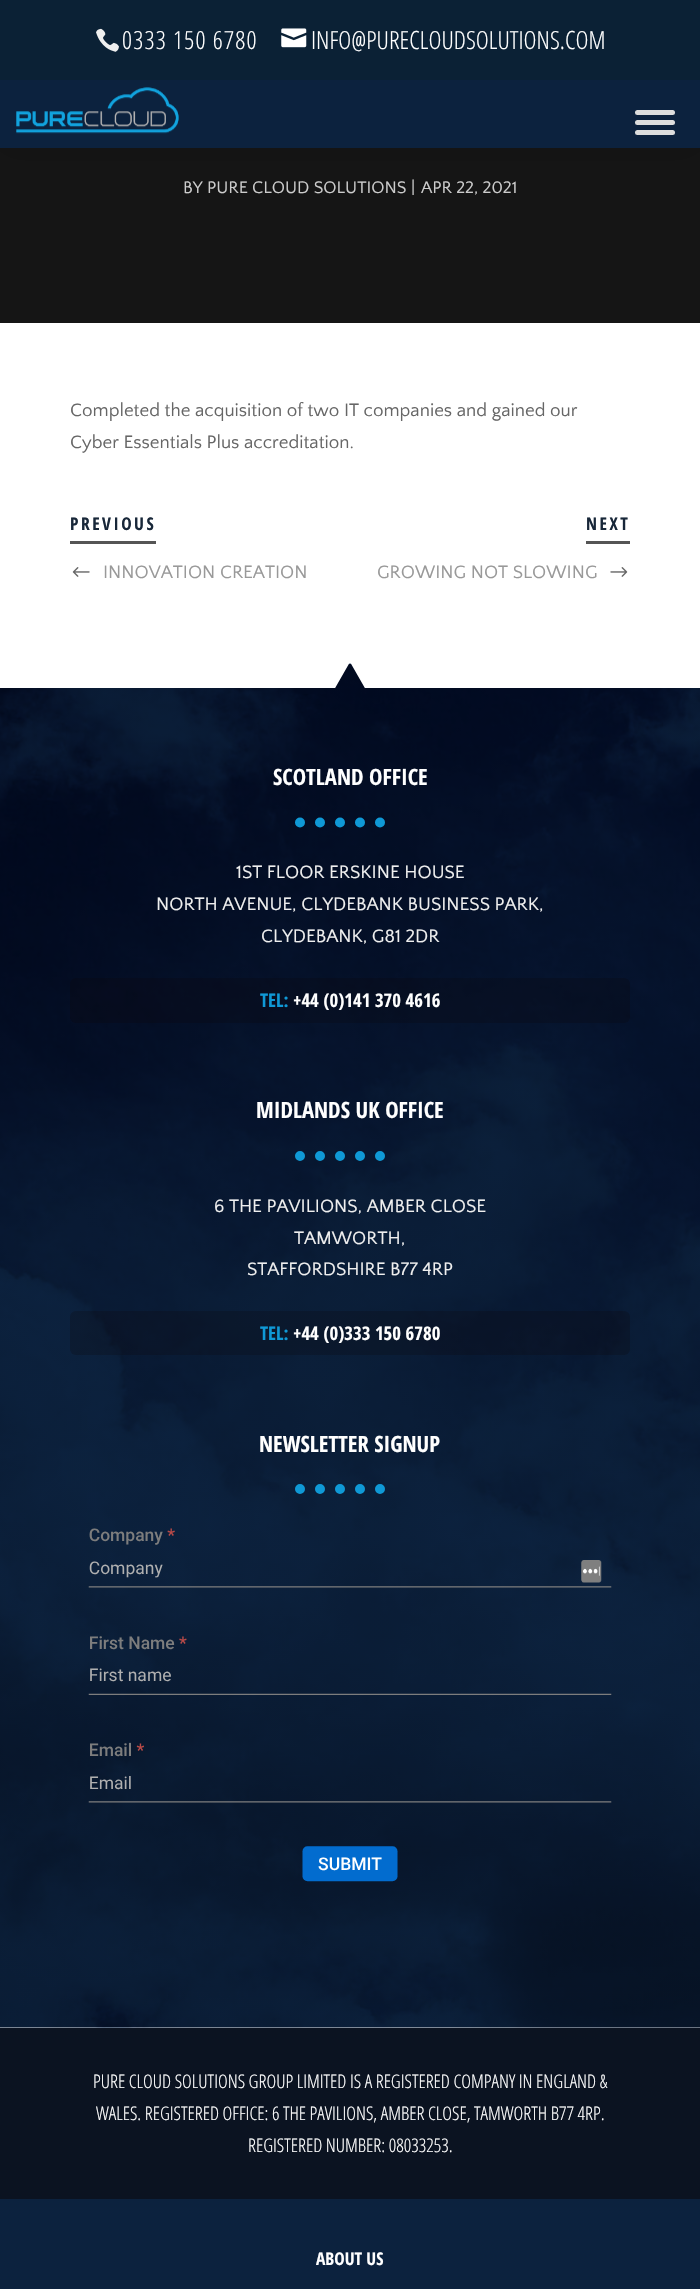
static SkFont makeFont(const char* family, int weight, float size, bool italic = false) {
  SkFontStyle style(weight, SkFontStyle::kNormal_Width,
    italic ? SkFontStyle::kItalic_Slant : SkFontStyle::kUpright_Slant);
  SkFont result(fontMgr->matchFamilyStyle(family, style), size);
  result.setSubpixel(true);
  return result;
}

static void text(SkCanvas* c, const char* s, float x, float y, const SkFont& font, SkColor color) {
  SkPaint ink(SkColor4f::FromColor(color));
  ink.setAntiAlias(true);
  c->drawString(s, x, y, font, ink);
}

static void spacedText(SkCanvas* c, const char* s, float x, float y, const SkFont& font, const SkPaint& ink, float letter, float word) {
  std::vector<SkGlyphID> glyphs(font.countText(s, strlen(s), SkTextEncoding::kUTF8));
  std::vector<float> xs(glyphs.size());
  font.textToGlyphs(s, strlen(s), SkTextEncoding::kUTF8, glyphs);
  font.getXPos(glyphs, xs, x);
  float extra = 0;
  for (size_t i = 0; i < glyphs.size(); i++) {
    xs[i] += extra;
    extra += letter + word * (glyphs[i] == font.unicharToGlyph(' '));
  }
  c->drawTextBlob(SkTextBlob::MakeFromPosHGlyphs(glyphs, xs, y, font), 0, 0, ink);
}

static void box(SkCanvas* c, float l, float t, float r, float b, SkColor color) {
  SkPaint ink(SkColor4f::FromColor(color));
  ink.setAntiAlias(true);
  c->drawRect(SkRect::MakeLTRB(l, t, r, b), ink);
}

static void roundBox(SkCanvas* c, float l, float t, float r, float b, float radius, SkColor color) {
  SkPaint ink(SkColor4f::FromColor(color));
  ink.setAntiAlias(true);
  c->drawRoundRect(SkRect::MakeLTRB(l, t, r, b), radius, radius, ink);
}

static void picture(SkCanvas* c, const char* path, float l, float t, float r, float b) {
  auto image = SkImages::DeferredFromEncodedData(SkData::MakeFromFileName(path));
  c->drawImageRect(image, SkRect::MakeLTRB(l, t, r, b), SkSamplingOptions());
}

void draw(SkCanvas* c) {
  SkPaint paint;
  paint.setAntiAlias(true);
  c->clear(0xffffffff);
  box(c, 0, 148, 700, 323, 0xff151515);
  paint.setColor(0x1a000000);
  paint.setMaskFilter(SkMaskFilter::MakeBlur(kNormal_SkBlurStyle, 15.5f));
  c->drawRect(SkRect::MakeLTRB(0, 75, 700, 150), paint);
  paint.setMaskFilter(nullptr);
  box(c, 0, 80, 700, 148, 0xff0c223e);
  picture(c, "img_01.png", 16, 87, 179, 134);
  roundBox(c, 635, 110, 675, 115, 2.5f, 0xffdddddd);
  roundBox(c, 635, 120, 675, 125, 2.5f, 0xffdddddd);
  roundBox(c, 635, 130, 675, 135, 2.5f, 0xffdddddd);
  box(c, 0, 0, 700, 80, 0xff0b2135);
  picture(c, "img_02.png", 96, 28, 119, 52);
  SkFont face1 = makeFont("Open Sans Condensed", 300, 25);
  paint.setColor(0xffffffff);
  spacedText(c, "0333 150 6780", 122, 49, face1, paint, 1.25f, 0);
  picture(c, "img_03.png", 281, 28, 307, 48);
  text(c, "INFO@PURECLOUDSOLUTIONS.COM", 311, 49, face1, 0xffffffff);
  SkFont face2 = makeFont("Quattrocento Sans", 400, 17.5f);
  text(c, "BY PURE CLOUD SOLUTIONS", 183, 193, face2, 0xffcccccc);
  text(c, "|", 411, 193, face2, 0xffcccccc);
  text(c, "APR 22, 2021", 421, 193, face2, 0xffcccccc);
  SkFont face3 = makeFont("Quattrocento Sans", 400, 18.75f);
  text(c, "Completed the acquisition of two IT companies and gained our", 70, 416, face3, 0xff666666);
  text(c, "Cyber Essentials Plus accreditation.", 70, 448, face3, 0xff666666);
  box(c, 70, 541, 156, 544, 0xff555555);
  SkFont face4 = makeFont("Open Sans Condensed", 700, 17.5f);
  paint.setColor(0xff182739);
  spacedText(c, "PREVIOUS", 70, 530, face4, paint, 2.5f, 0);
  picture(c, "img_04.png", 72, 567, 90, 577);
  text(c, "INNOVATION CREATION", 103, 578, face3, 0xff999999);
  box(c, 586, 541, 630, 544, 0xff555555);
  spacedText(c, "NEXT", 586, 530, face4, paint, 2.5f, 0);
  text(c, "GROWING NOT SLOWING", 377, 578, face3, 0xff999999);
  picture(c, "img_05.png", 610, 567, 628, 577);
  picture(c, "img_06.png", 0, 663, 700, 2028);
  c->save();
  c->clipRect(SkRect::MakeLTRB(0, 663, 700, 688));
  paint.setColor(0xffffffff);
  c->drawPath(SkPathBuilder().moveTo(394, 739).lineTo(350, 662).lineTo(306, 739).lineTo(0, 739).lineTo(0, 662).lineTo(700, 662).lineTo(700, 739).close().detach(), paint);
  c->restore();
  SkFont face5 = makeFont("Open Sans Condensed", 700, 22.5f);
  text(c, "SCOTLAND OFFICE", 273, 785, face5, 0xffffffff);
  paint.setStyle(SkPaint::kStroke_Style);
  paint.setStrokeWidth(10);
  paint.setStrokeCap(SkPaint::kRound_Cap);
  paint.setColor(0xff0f99d6);
  paint.setPathEffect(SkDashPathEffect::Make({{0, 20}}, 0));
  c->drawPath(SkPathBuilder().moveTo(300, 822.5f).lineTo(400, 822.5f).detach(), paint);
  paint.setPathEffect(nullptr);
  text(c, "1ST FLOOR ERSKINE HOUSE", 236, 878, face3, 0xffefefef);
  text(c, "NORTH AVENUE, CLYDEBANK BUSINESS PARK,", 156, 910, face3, 0xffefefef);
  text(c, "CLYDEBANK, G81 2DR", 261, 942, face3, 0xffefefef);
  roundBox(c, 70, 978, 630, 1023, 6, 0x330a0000);
  SkFont face6 = makeFont("Open Sans Condensed", 700, 18.75f);
  text(c, "TEL:", 260, 1007, face6, 0xff0f99d6);
  text(c, "+44 (0)141 370 4616", 293, 1007, face6, 0xffffffff);
  text(c, "MIDLANDS UK OFFICE", 256, 1118, face5, 0xffffffff);
  paint.setPathEffect(SkDashPathEffect::Make({{0, 20}}, 0));
  c->drawPath(SkPathBuilder().moveTo(300, 1156).lineTo(400, 1156).detach(), paint);
  paint.setPathEffect(nullptr);
  text(c, "6 THE PAVILIONS, AMBER CLOSE", 214, 1212, face3, 0xffefefef);
  text(c, "TAMWORTH,", 294, 1244, face3, 0xffefefef);
  text(c, "STAFFORDSHIRE B77 4RP", 247, 1275, face3, 0xffefefef);
  roundBox(c, 70, 1311, 630, 1355, 6, 0x330a0000);
  text(c, "TEL:", 260, 1340, face6, 0xff0f99d6);
  text(c, "+44 (0)333 150 6780", 293, 1340, face6, 0xffffffff);
  text(c, "NEWSLETTER SIGNUP", 259, 1452, face5, 0xffffffff);
  paint.setPathEffect(SkDashPathEffect::Make({{0, 20}}, 0));
  c->drawPath(SkPathBuilder().moveTo(300, 1489).lineTo(400, 1489).detach(), paint);
  paint.setPathEffect(nullptr);
  picture(c, "img_07.png", 88, 1528, 612, 1882);
  box(c, 0, 2028, 700, 2199, 0xff0b1321);
  SkFont face7 = makeFont("Open Sans Condensed", 300, 18.75f);
  text(c, "PURE CLOUD SOLUTIONS GROUP LIMITED IS A REGISTERED COMPANY IN ENGLAND &", 93, 2088, face7, 0xffffffff);
  text(c, "WALES. REGISTERED OFFICE: 6 THE PAVILIONS, AMBER CLOSE, TAMWORTH B77 4RP.", 96, 2120, face7, 0xffffffff);
  text(c, "REGISTERED NUMBER: 08033253.", 248, 2152, face7, 0xffffffff);
  box(c, 0, 2199, 700, 2289, 0xff0c223e);
  text(c, "ABOUT US", 316, 2265, face4, 0xffffffff);
}
